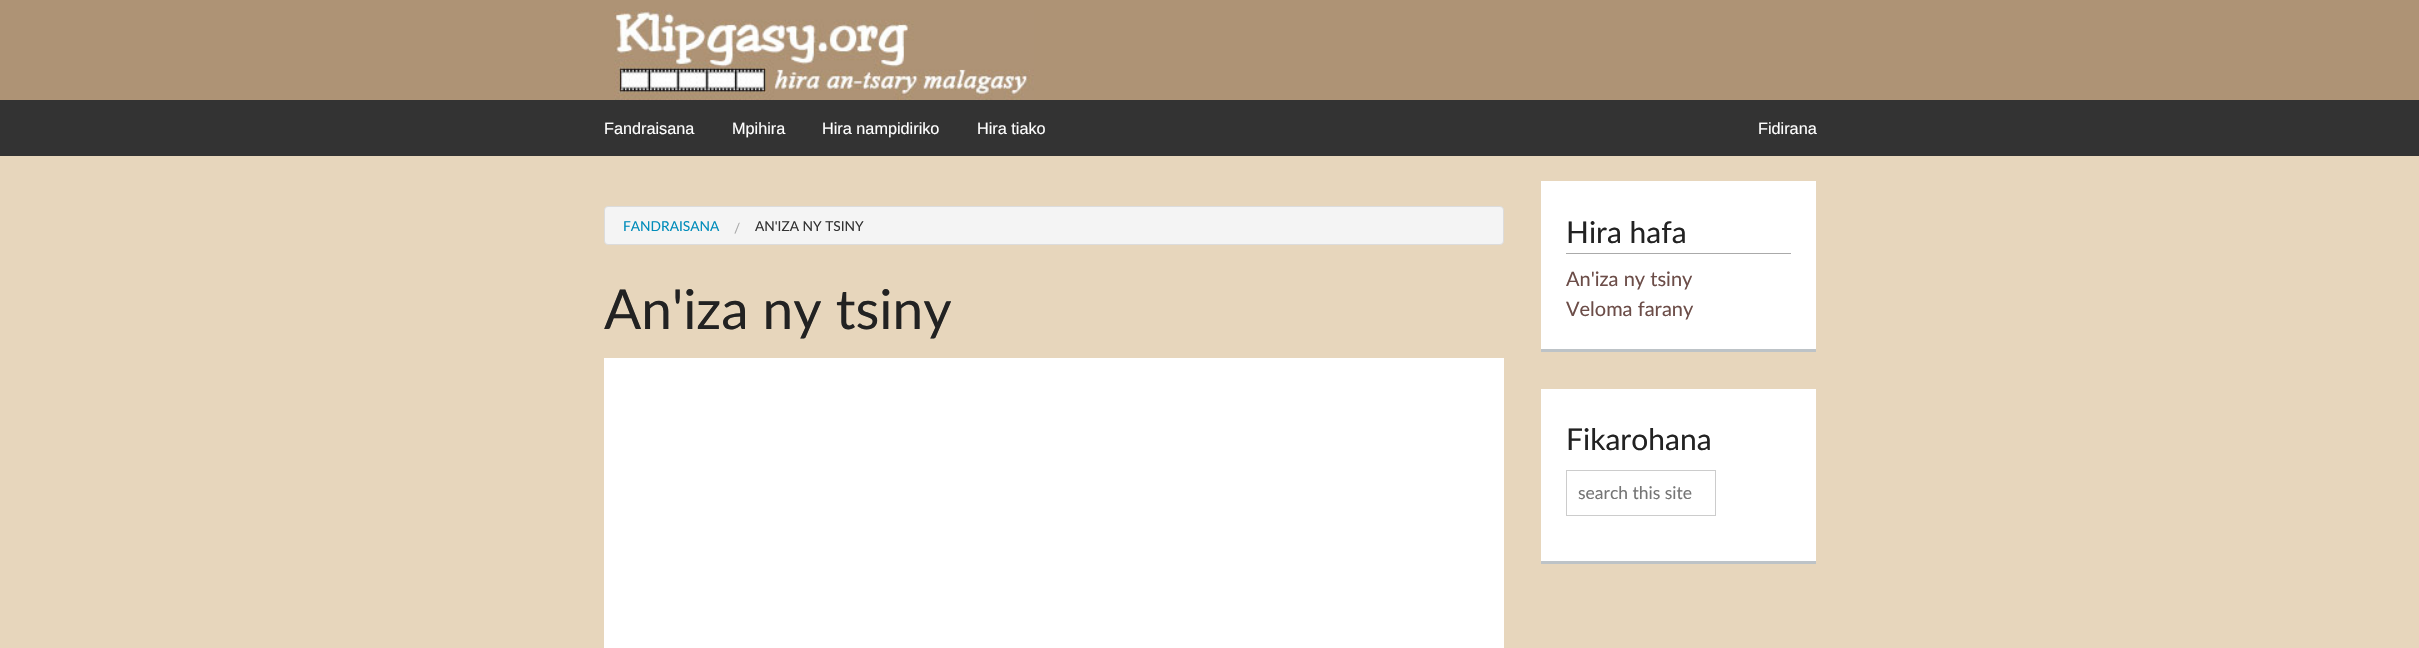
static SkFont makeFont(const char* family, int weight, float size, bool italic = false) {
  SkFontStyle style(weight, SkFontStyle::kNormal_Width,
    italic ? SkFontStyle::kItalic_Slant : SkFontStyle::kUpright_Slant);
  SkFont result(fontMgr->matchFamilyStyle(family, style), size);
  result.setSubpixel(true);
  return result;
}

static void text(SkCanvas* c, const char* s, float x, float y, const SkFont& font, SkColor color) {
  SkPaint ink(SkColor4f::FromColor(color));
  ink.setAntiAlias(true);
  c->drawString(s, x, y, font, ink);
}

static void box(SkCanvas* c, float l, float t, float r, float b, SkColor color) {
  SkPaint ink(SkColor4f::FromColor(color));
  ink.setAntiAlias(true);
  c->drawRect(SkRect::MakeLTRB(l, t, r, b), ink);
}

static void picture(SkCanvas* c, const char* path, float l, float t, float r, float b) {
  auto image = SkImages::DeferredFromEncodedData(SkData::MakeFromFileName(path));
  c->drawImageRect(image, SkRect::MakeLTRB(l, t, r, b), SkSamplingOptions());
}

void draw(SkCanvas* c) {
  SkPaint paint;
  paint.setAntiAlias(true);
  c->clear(0xffe7d6bc);
  box(c, 0, 0, 2419, 100, 0xffae9375);
  picture(c, "img_01.png", 614, 10, 1034, 100);
  box(c, 0, 100, 2419, 156, 0xff333333);
  SkFont face1 = makeFont("Liberation Sans", 400, 16.25f);
  text(c, "Fandraisana", 604, 134, face1, 0xffffffff);
  text(c, "Mpihira", 732, 134, face1, 0xffffffff);
  text(c, "Hira nampidiriko", 822, 134, face1, 0xffffffff);
  text(c, "Hira tiako", 977, 134, face1, 0xffffffff);
  text(c, "Fidirana", 1758, 134, face1, 0xffffffff);
  paint.setColor(0xfff4f4f4);
  c->drawRoundRect(SkRect::MakeLTRB(604.5f, 206.5f, 1503.5f, 244.5f), 3.5f, 3.5f, paint);
  paint.setStyle(SkPaint::kStroke_Style);
  paint.setStrokeWidth(1);
  paint.setColor(0xffdcdcdc);
  c->drawRoundRect(SkRect::MakeLTRB(604.5f, 206.5f, 1503.5f, 244.5f), 3.5f, 3.5f, paint);
  SkFont face2 = makeFont("Lato", 400, 13.75f);
  text(c, "FANDRAISANA", 623, 231, face2, 0xff008cba);
  text(c, "/", 734, 233, face2, 0xffaaaaaa);
  text(c, "AN'IZA NY TSINY", 755, 231, face2, 0xff333333);
  SkFont face3 = makeFont("Lato", 400, 55);
  text(c, "An'iza ny tsiny", 604, 329, face3, 0xff222222);
  box(c, 604, 358, 1504, 648, 0xffffffff);
  box(c, 1541, 181, 1816, 349, 0xffffffff);
  box(c, 1541, 349, 1816, 352, 0xffbdc3c7);
  box(c, 1566, 253, 1791, 254, 0xffaaaaaa);
  SkFont face4 = makeFont("Lato", 400, 30);
  text(c, "Hira hafa", 1566, 243, face4, 0xff222222);
  SkFont face5 = makeFont("Lato", 400, 20);
  text(c, "An'iza ny tsiny", 1566, 286, face5, 0xff6c4d48);
  text(c, "Veloma farany", 1566, 316, face5, 0xff6c4d48);
  box(c, 1541, 389, 1816, 561, 0xffffffff);
  box(c, 1541, 561, 1816, 564, 0xffbdc3c7);
  text(c, "Fikarohana", 1566, 450, face4, 0xff222222);
  paint.setColor(0xffcccccc);
  c->drawRect(SkRect::MakeLTRB(1566.5f, 470.5f, 1715.5f, 515.5f), paint);
  SkFont face6 = makeFont("Lato", 400, 17.5f);
  text(c, "search this site", 1578, 499, face6, 0xff757575);
}
